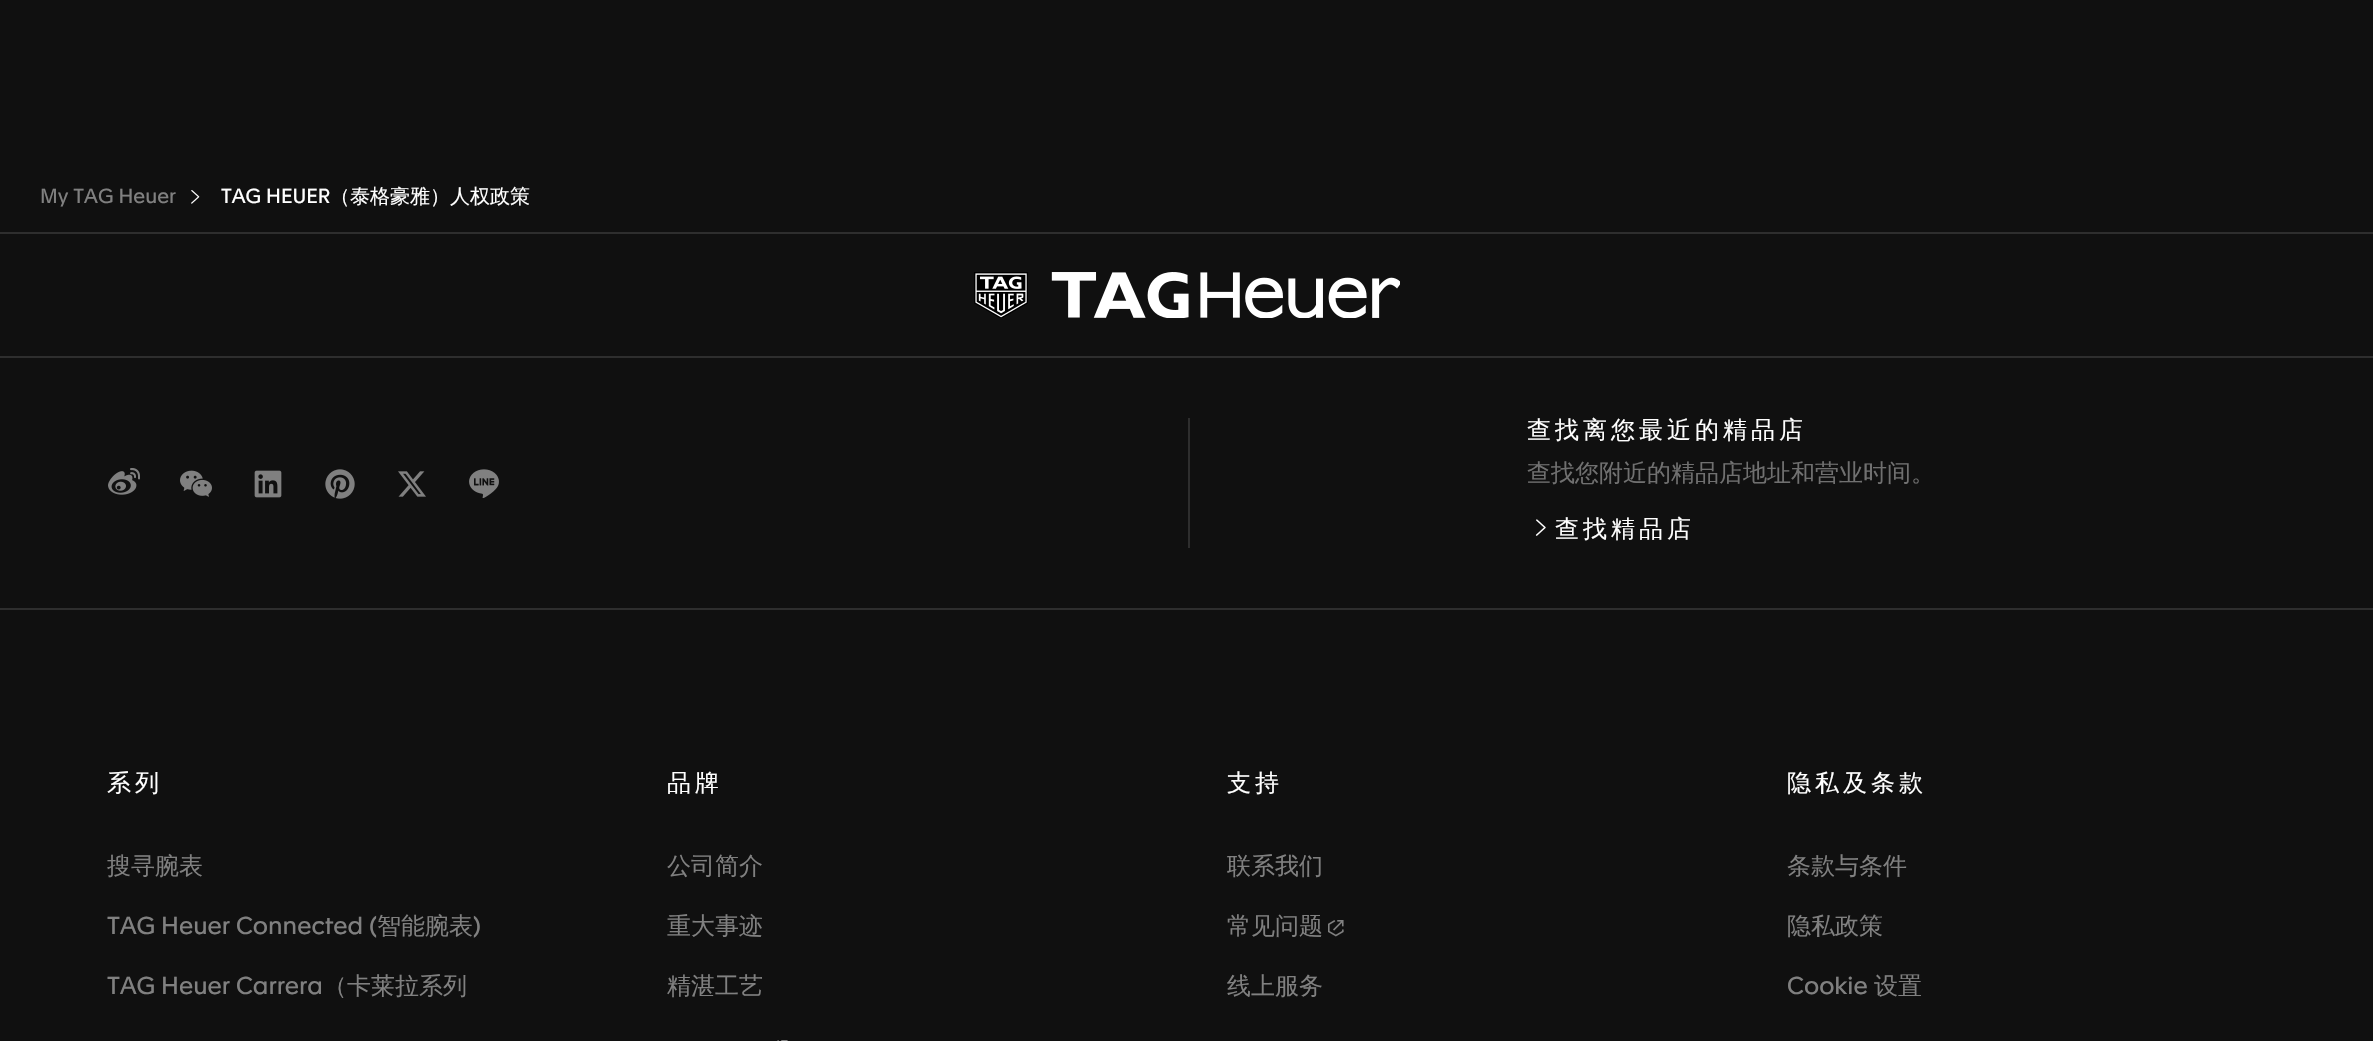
static SkFont makeFont(const char* family, int weight, float size, bool italic = false) {
  SkFontStyle style(weight, SkFontStyle::kNormal_Width,
    italic ? SkFontStyle::kItalic_Slant : SkFontStyle::kUpright_Slant);
  SkFont result(fontMgr->matchFamilyStyle(family, style), size);
  result.setSubpixel(true);
  return result;
}

static void text(SkCanvas* c, const char* s, float x, float y, const SkFont& font, SkColor color) {
  SkPaint ink(SkColor4f::FromColor(color));
  ink.setAntiAlias(true);
  c->drawString(s, x, y, font, ink);
}

static void spacedText(SkCanvas* c, const char* s, float x, float y, const SkFont& font, const SkPaint& ink, float letter, float word) {
  std::vector<SkGlyphID> glyphs(font.countText(s, strlen(s), SkTextEncoding::kUTF8));
  std::vector<float> xs(glyphs.size());
  font.textToGlyphs(s, strlen(s), SkTextEncoding::kUTF8, glyphs);
  font.getXPos(glyphs, xs, x);
  float extra = 0;
  for (size_t i = 0; i < glyphs.size(); i++) {
    xs[i] += extra;
    extra += letter + word * (glyphs[i] == font.unicharToGlyph(' '));
  }
  c->drawTextBlob(SkTextBlob::MakeFromPosHGlyphs(glyphs, xs, y, font), 0, 0, ink);
}

static void box(SkCanvas* c, float l, float t, float r, float b, SkColor color) {
  SkPaint ink(SkColor4f::FromColor(color));
  ink.setAntiAlias(true);
  c->drawRect(SkRect::MakeLTRB(l, t, r, b), ink);
}

static void picture(SkCanvas* c, const char* path, float l, float t, float r, float b) {
  auto image = SkImages::DeferredFromEncodedData(SkData::MakeFromFileName(path));
  c->drawImageRect(image, SkRect::MakeLTRB(l, t, r, b), SkSamplingOptions());
}

void draw(SkCanvas* c) {
  SkPaint paint;
  paint.setAntiAlias(true);
  c->clear(0xff101010);
  box(c, 0, 232, 2373, 234, 0xff2e2e2e);
  SkFont face1 = makeFont("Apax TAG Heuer", 400, 20);
  text(c, "My TAG Heuer", 40, 203, face1, 0xff808080);
  picture(c, "img_01.png", 191, 190, 200, 204);
  text(c, "TAG HEUER", 221, 203, face1, 0xffffffff);
  SkFont face2 = makeFont("WenQuanYi Zen Hei", 500, 20);
  text(c, "（泰格豪雅）人权政策", 330, 203, face2, 0xffffffff);
  box(c, 0, 356, 2373, 358, 0xff2e2e2e);
  picture(c, "img_02.png", 974, 272, 1400, 318);
  box(c, 0, 608, 2373, 610, 0xff2e2e2e);
  box(c, 1188, 418, 1190, 548, 0xff2e2e2e);
  picture(c, "img_03.png", 108, 468, 140, 495);
  picture(c, "img_04.png", 180, 470, 212, 497);
  picture(c, "img_05.png", 254, 470, 282, 498);
  picture(c, "img_06.png", 325, 469, 355, 499);
  picture(c, "img_07.png", 398, 471, 426, 497);
  picture(c, "img_08.png", 469, 469, 499, 498);
  SkFont face3 = makeFont("WenQuanYi Zen Hei", 500, 24);
  paint.setColor(0xffffffff);
  spacedText(c, "查找离您最近的精品店", 1527, 438, face3, paint, 4, 0);
  text(c, "查找您附近的精品店地址和营业时间。", 1527, 481, face3, 0xff707070);
  picture(c, "img_09.png", 1535, 519, 1546, 536);
  spacedText(c, "查找精品店", 1555, 537, face3, paint, 4, 0);
  spacedText(c, "系列", 107, 791, face3, paint, 4, 0);
  text(c, "搜寻腕表", 107, 874, face3, 0xff808080);
  SkFont face4 = makeFont("Apax TAG Heuer", 400, 24);
  text(c, "TAG Heuer Connected (", 107, 934, face4, 0xff808080);
  text(c, "智能腕表", 377, 934, face3, 0xff808080);
  text(c, ")", 473, 934, face4, 0xff808080);
  text(c, "TAG Heuer Carrera", 107, 994, face4, 0xff808080);
  text(c, "（卡莱拉系列", 323, 994, face3, 0xff808080);
  spacedText(c, "品牌", 667, 791, face3, paint, 4, 0);
  text(c, "公司简介", 667, 874, face3, 0xff808080);
  text(c, "重大事迹", 667, 934, face3, 0xff808080);
  text(c, "精湛工艺", 667, 994, face3, 0xff808080);
  picture(c, "img_10.png", 777, 1040, 788, 1041);
  spacedText(c, "支持", 1227, 791, face3, paint, 4, 0);
  text(c, "联系我们", 1227, 874, face3, 0xff808080);
  text(c, "常见问题", 1227, 934, face3, 0xff808080);
  picture(c, "img_11.png", 1328, 920, 1344, 937);
  text(c, "线上服务", 1227, 994, face3, 0xff808080);
  spacedText(c, "隐私及条款", 1787, 791, face3, paint, 4, 0);
  text(c, "条款与条件", 1787, 874, face3, 0xff808080);
  text(c, "隐私政策", 1787, 934, face3, 0xff808080);
  text(c, "Cookie", 1787, 994, face4, 0xff808080);
  text(c, "设置", 1874, 994, face3, 0xff808080);
}
